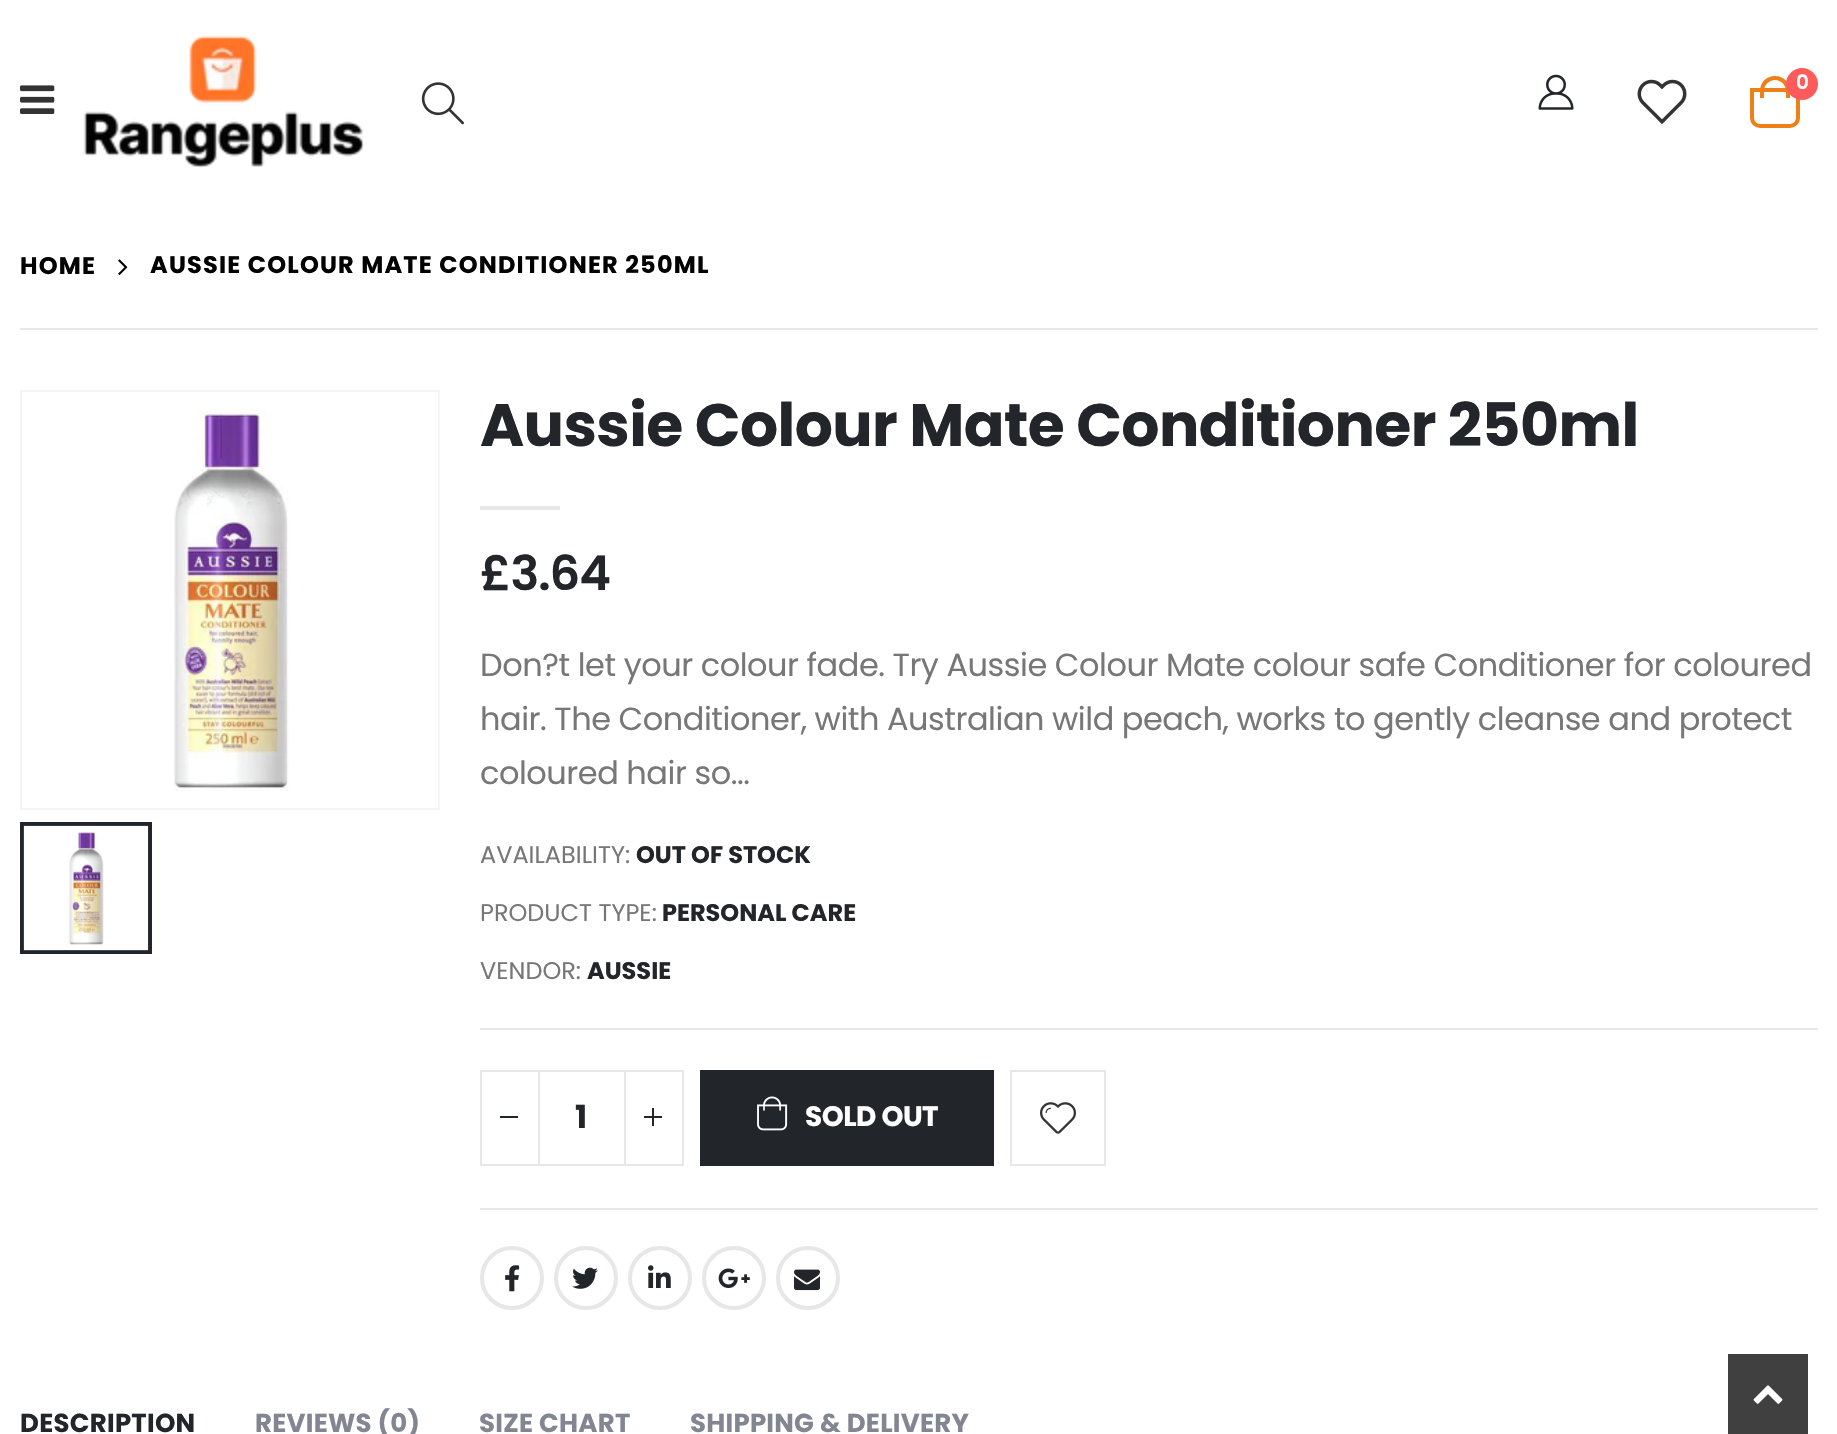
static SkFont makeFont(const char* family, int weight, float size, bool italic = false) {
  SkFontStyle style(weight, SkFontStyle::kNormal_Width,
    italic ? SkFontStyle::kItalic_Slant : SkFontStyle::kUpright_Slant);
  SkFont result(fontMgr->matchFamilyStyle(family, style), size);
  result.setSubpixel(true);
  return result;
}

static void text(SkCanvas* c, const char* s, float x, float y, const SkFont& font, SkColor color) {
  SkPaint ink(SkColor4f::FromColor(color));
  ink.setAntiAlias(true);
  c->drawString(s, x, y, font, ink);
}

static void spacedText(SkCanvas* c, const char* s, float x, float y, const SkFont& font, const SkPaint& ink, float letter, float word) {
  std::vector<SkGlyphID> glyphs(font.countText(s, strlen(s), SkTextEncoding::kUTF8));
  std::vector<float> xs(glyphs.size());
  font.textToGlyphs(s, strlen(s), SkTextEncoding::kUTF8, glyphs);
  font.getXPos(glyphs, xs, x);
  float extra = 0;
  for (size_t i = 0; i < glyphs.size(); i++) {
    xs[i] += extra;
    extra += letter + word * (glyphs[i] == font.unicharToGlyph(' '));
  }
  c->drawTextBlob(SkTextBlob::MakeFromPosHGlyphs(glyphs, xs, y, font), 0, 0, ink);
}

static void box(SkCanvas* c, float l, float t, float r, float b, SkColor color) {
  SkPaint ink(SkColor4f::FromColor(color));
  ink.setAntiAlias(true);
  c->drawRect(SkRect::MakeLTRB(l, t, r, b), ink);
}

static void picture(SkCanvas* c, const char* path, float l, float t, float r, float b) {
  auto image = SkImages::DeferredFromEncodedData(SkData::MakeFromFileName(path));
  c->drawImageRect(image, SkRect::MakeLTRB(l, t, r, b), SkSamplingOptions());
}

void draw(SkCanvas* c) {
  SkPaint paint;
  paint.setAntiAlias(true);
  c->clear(0xffffffff);
  picture(c, "img_01.png", 20, 85, 55, 114);
  picture(c, "img_02.png", 83, 35, 364, 168);
  picture(c, "img_03.png", 421, 82, 464, 125);
  picture(c, "img_04.png", 1538, 74, 1574, 110);
  picture(c, "img_05.png", 1637, 79, 1687, 124);
  paint.setStyle(SkPaint::kStroke_Style);
  paint.setStrokeWidth(4);
  paint.setColor(0xffee801a);
  c->drawPath(SkPathBuilder().moveTo(1752, 90).lineTo(1798, 90).lineTo(1798, 118).cubicTo(1798, 122.5f, 1794.5f, 126, 1790, 126).lineTo(1760, 126).cubicTo(1755.5f, 126, 1752, 122.5f, 1752, 118).close().detach(), paint);
  paint.setStyle(SkPaint::kFill_Style);
  c->drawPath(SkPathBuilder(SkPathFillType::kEvenOdd).moveTo(1775, 76).cubicTo(1783.5f, 76, 1790, 82.5f, 1790, 91).lineTo(1790, 98).lineTo(1760, 98).lineTo(1760, 91).cubicTo(1760, 82.5f, 1766.5f, 76, 1775, 76).close().moveTo(1775, 80).cubicTo(1781, 80, 1786, 85, 1786, 91).lineTo(1786, 98).lineTo(1764, 98).lineTo(1764, 91).cubicTo(1764, 85, 1769, 80, 1775, 80).close().detach(), paint);
  paint.setColor(0xffff5b5b);
  c->drawCircle(1802, 84, 16, paint);
  SkFont face1 = makeFont("Poppins", 600, 20);
  text(c, "0", 1796, 89, face1, 0xffffffff);
  box(c, 20, 328, 1818, 330, 0xffe7e7e7);
  SkFont face2 = makeFont("Poppins", 700, 24);
  paint.setColor(0xff000000);
  spacedText(c, "HOME", 20, 274, face2, paint, 1.2f, 0);
  picture(c, "img_06.png", 118, 259, 128, 275);
  spacedText(c, "AUSSIE COLOUR MATE CONDITIONER 250ML", 150, 273, face2, paint, 1.2f, 0);
  paint.setStyle(SkPaint::kStroke_Style);
  paint.setStrokeWidth(2);
  paint.setColor(0xfff4f4f4);
  c->drawRect(SkRect::MakeLTRB(21, 391, 439, 809), paint);
  picture(c, "img_07.png", 174, 404, 289, 791);
  paint.setStrokeWidth(4);
  paint.setColor(0xff222529);
  c->drawRect(SkRect::MakeLTRB(22, 824, 150, 952), paint);
  picture(c, "img_08.png", 23, 825, 149, 951);
  SkFont face3 = makeFont("Poppins", 700, 60);
  paint.setStyle(SkPaint::kFill_Style);
  spacedText(c, "Aussie Colour Mate Conditioner 250ml", 480, 446, face3, paint, -0.6f, 0);
  box(c, 480, 506, 560, 510, 0xffe7e7e7);
  SkFont face4 = makeFont("Poppins", 600, 48);
  spacedText(c, "£3.64", 480, 590, face4, paint, -1, 0);
  SkFont face5 = makeFont("Poppins", 400, 32);
  paint.setColor(0xff777777);
  spacedText(c, "Don?t let your colour fade. Try Aussie Colour Mate colour safe Conditioner for coloured", 480, 676, face5, paint, -0.48f, 0);
  spacedText(c, "hair. The Conditioner, with Australian wild peach, works to gently cleanse and protect", 480, 730, face5, paint, -0.48f, 0);
  spacedText(c, "coloured hair so...", 480, 784, face5, paint, -0.48f, 0);
  SkFont face6 = makeFont("Poppins", 400, 24);
  text(c, "AVAILABILITY:", 480, 863, face6, 0xff777777);
  text(c, "OUT OF STOCK", 636, 863, face2, 0xff222529);
  text(c, "PRODUCT TYPE:", 480, 921, face6, 0xff777777);
  text(c, "PERSONAL CARE", 662, 921, face2, 0xff222529);
  text(c, "VENDOR:", 480, 979, face6, 0xff777777);
  text(c, "AUSSIE", 587, 979, face2, 0xff222529);
  box(c, 480, 1028, 1818, 1030, 0xffe7e7e7);
  box(c, 480, 1208, 1818, 1210, 0xffe7e7e7);
  paint.setStyle(SkPaint::kStroke_Style);
  paint.setStrokeWidth(2);
  paint.setColor(0xffe7e7e7);
  c->drawRect(SkRect::MakeLTRB(539, 1071, 625, 1165), paint);
  c->drawRect(SkRect::MakeLTRB(481, 1071, 539, 1165), paint);
  box(c, 500, 1116, 518, 1118, 0xff222529);
  c->drawRect(SkRect::MakeLTRB(625, 1071, 683, 1165), paint);
  box(c, 644, 1116, 662, 1118, 0xff222529);
  box(c, 652, 1108, 654, 1126, 0xff222529);
  SkFont face7 = makeFont("Poppins", 700, 32);
  text(c, "1", 575, 1128, face7, 0xff222529);
  box(c, 700, 1070, 994, 1166, 0xff222529);
  picture(c, "img_09.png", 757, 1096, 788, 1131);
  SkFont face8 = makeFont("Poppins", 700, 28);
  paint.setStyle(SkPaint::kFill_Style);
  paint.setColor(0xffffffff);
  spacedText(c, "SOLD OUT", 805, 1126, face8, paint, -0.5f, 0);
  paint.setStyle(SkPaint::kStroke_Style);
  paint.setColor(0xffe7e7e7);
  c->drawRect(SkRect::MakeLTRB(1011, 1071, 1105, 1165), paint);
  picture(c, "img_10.png", 1040, 1102, 1076, 1134);
  paint.setStrokeWidth(4);
  c->drawCircle(512, 1278, 30, paint);
  picture(c, "img_11.png", 505, 1265, 520, 1292);
  c->drawCircle(586, 1278, 30, paint);
  picture(c, "img_12.png", 572, 1267, 598, 1289);
  c->drawCircle(660, 1278, 30, paint);
  picture(c, "img_13.png", 648, 1265, 671, 1288);
  c->drawCircle(734, 1278, 30, paint);
  picture(c, "img_14.png", 718, 1268, 750, 1288);
  c->drawCircle(808, 1278, 30, paint);
  picture(c, "img_15.png", 794, 1269, 820, 1291);
  SkFont face9 = makeFont("Poppins", 700, 26);
  paint.setStyle(SkPaint::kFill_Style);
  paint.setColor(0xff222529);
  spacedText(c, "DESCRIPTION", 20, 1432, face9, paint, 0.25f, 0);
  paint.setColor(0xff818692);
  spacedText(c, "REVIEWS (0)", 255, 1432, face9, paint, 0.25f, 0);
  spacedText(c, "SIZE CHART", 479, 1432, face9, paint, 0.25f, 0);
  spacedText(c, "SHIPPING & DELIVERY", 690, 1432, face9, paint, 0.25f, 0);
  box(c, 1728, 1354, 1808, 1434, 0xff404040);
  picture(c, "img_16.png", 1753, 1385, 1783, 1404);
}
